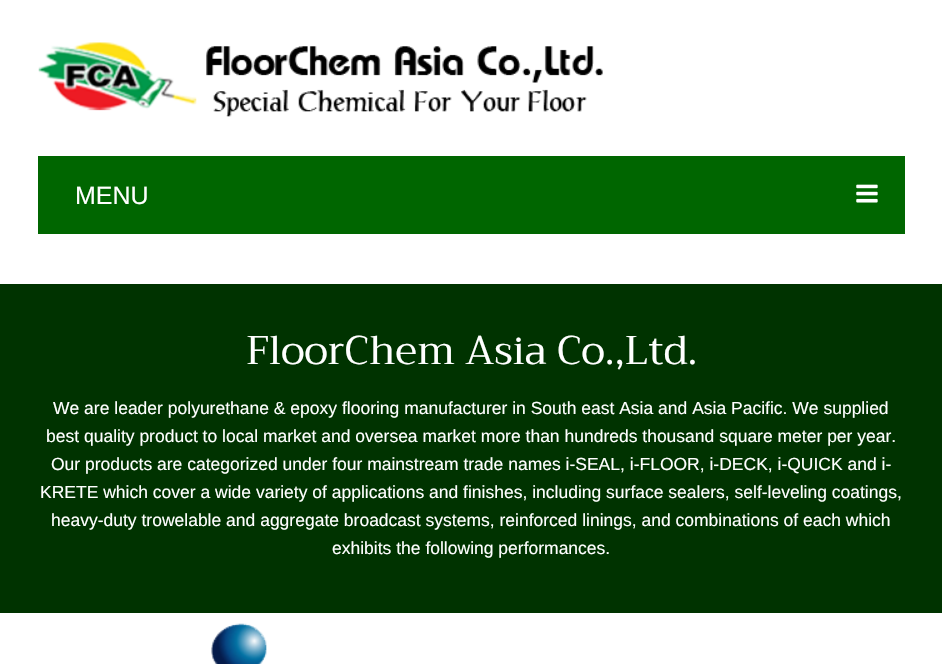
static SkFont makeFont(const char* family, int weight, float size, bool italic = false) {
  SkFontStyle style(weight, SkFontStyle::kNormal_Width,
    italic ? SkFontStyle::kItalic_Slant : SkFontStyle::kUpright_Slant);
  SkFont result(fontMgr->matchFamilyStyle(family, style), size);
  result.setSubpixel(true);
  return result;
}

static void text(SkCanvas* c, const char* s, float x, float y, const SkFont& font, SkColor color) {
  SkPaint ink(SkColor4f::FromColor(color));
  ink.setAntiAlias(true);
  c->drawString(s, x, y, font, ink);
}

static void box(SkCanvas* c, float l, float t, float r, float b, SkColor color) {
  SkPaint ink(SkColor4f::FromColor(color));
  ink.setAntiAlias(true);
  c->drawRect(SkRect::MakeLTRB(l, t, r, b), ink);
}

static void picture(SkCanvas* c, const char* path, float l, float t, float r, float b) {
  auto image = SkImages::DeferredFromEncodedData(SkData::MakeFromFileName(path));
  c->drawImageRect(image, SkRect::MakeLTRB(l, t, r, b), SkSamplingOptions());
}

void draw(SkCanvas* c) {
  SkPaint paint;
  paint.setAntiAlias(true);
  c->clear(0xffffffff);
  picture(c, "img_01.png", 38, 42, 603, 117);
  box(c, 38, 156, 905, 234, 0xff006600);
  SkFont face1 = makeFont("Liberation Sans", 400, 25);
  text(c, "MENU", 75, 204, face1, 0xffffffff);
  picture(c, "img_02.png", 856, 184, 878, 203);
  box(c, 0, 284, 942, 613, 0xff003300);
  SkFont face2 = makeFont("Trirong", 400, 40);
  text(c, "FloorChem Asia Co.,Ltd.", 246, 364, face2, 0xffffffff);
  SkFont face3 = makeFont("Liberation Sans", 400, 17.5f);
  text(c, "We are leader polyurethane & epoxy flooring manufacturer in South east Asia and Asia Pacific. We supplied", 53, 414, face3, 0xffffffff);
  text(c, "best quality product to local market and oversea market more than hundreds thousand square meter per year.", 46, 442, face3, 0xffffffff);
  text(c, "Our products are categorized under four mainstream trade names i-SEAL, i-FLOOR, i-DECK, i-QUICK and i-", 51, 470, face3, 0xffffffff);
  text(c, "KRETE which cover a wide variety of applications and finishes, including surface sealers, self-leveling coatings,", 40, 498, face3, 0xffffffff);
  text(c, "heavy-duty trowelable and aggregate broadcast systems, reinforced linings, and combinations of each which", 51, 526, face3, 0xffffffff);
  text(c, "exhibits the following performances.", 332, 554, face3, 0xffffffff);
  picture(c, "img_03.png", 211, 623, 267, 664);
}
